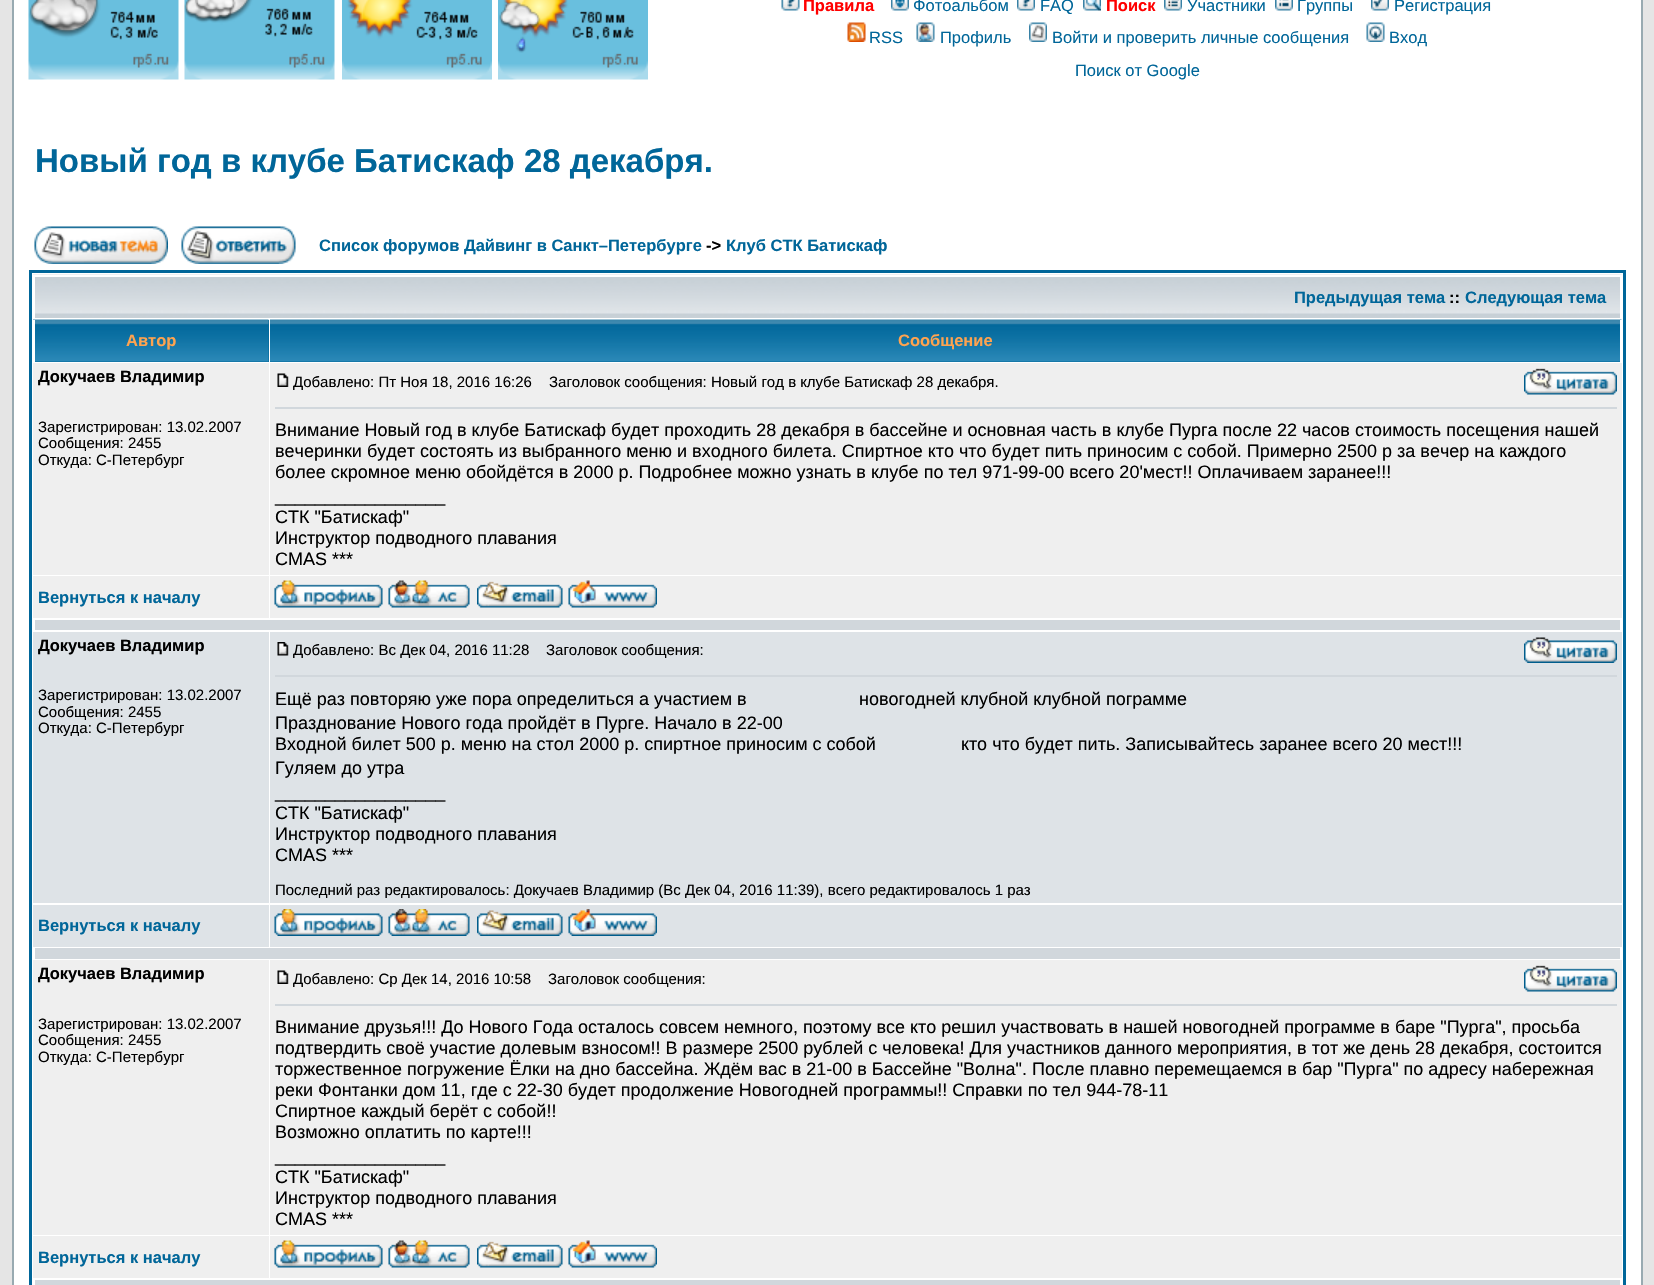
static SkFont makeFont(const char* family, int weight, float size, bool italic = false) {
  SkFontStyle style(weight, SkFontStyle::kNormal_Width,
    italic ? SkFontStyle::kItalic_Slant : SkFontStyle::kUpright_Slant);
  SkFont result(fontMgr->matchFamilyStyle(family, style), size);
  result.setSubpixel(true);
  return result;
}

static void text(SkCanvas* c, const char* s, float x, float y, const SkFont& font, SkColor color) {
  SkPaint ink(SkColor4f::FromColor(color));
  ink.setAntiAlias(true);
  c->drawString(s, x, y, font, ink);
}

static void box(SkCanvas* c, float l, float t, float r, float b, SkColor color) {
  SkPaint ink(SkColor4f::FromColor(color));
  ink.setAntiAlias(true);
  c->drawRect(SkRect::MakeLTRB(l, t, r, b), ink);
}

static void picture(SkCanvas* c, const char* path, float l, float t, float r, float b) {
  auto image = SkImages::DeferredFromEncodedData(SkData::MakeFromFileName(path));
  c->drawImageRect(image, SkRect::MakeLTRB(l, t, r, b), SkSamplingOptions());
}

void draw(SkCanvas* c) {
  SkPaint paint;
  paint.setAntiAlias(true);
  c->clear(0xffe5e5e5);
  paint.setColor(0xffffffff);
  c->drawRect(SkRect::MakeLTRB(13, -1, 1642, 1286), paint);
  paint.setStyle(SkPaint::kStroke_Style);
  paint.setStrokeWidth(2);
  paint.setColor(0xff98aab1);
  c->drawRect(SkRect::MakeLTRB(13, -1, 1642, 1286), paint);
  picture(c, "img_01.png", 28, 0, 179, 80);
  picture(c, "img_02.png", 184, 0, 335, 80);
  picture(c, "img_03.png", 342, 0, 492, 80);
  picture(c, "img_04.png", 498, 0, 648, 80);
  picture(c, "img_05.png", 781, 0, 800, 11);
  SkFont face1 = makeFont("Liberation Sans", 700, 16.5f);
  text(c, "Правила", 803, 11, face1, 0xffff0000);
  picture(c, "img_06.png", 891, 0, 909, 11);
  SkFont face2 = makeFont("Liberation Sans", 400, 16.5f);
  text(c, "Фотоальбом", 913, 11, face2, 0xff006699);
  picture(c, "img_07.png", 1017, 0, 1035, 11);
  text(c, "FAQ", 1040, 11, face2, 0xff006699);
  picture(c, "img_08.png", 1083, 0, 1101, 11);
  text(c, "Поиск", 1106, 11, face1, 0xffff0000);
  picture(c, "img_09.png", 1164, 0, 1182, 11);
  text(c, "Участники", 1187, 11, face2, 0xff006699);
  picture(c, "img_10.png", 1275, 0, 1293, 11);
  text(c, "Группы", 1297, 11, face2, 0xff006699);
  picture(c, "img_11.png", 1371, 0, 1389, 11);
  text(c, "Регистрация", 1394, 11, face2, 0xff006699);
  picture(c, "img_12.png", 847, 22, 866, 42);
  text(c, "RSS", 869, 43, face2, 0xff006699);
  picture(c, "img_13.png", 916, 22, 935, 42);
  text(c, "Профиль", 940, 43, face2, 0xff006699);
  picture(c, "img_14.png", 1029, 22, 1047, 42);
  text(c, "Войти и проверить личные сообщения", 1052, 43, face2, 0xff006699);
  picture(c, "img_15.png", 1366, 22, 1385, 42);
  text(c, "Вход", 1389, 43, face2, 0xff006699);
  text(c, "Поиск от Google", 1075, 76, face2, 0xff006699);
  SkFont face3 = makeFont("Liberation Sans", 700, 33);
  text(c, "Новый год в клубе Батискаф 28 декабря.", 35, 172, face3, 0xff006699);
  picture(c, "img_16.png", 34, 226, 168, 264);
  picture(c, "img_17.png", 181, 226, 296, 264);
  text(c, "Список форумов Дайвинг в Санкт–Петербурге", 319, 251, face1, 0xff006699);
  text(c, "->", 706, 251, face1, 0xff000000);
  text(c, "Клуб СТК Батискаф", 726, 251, face1, 0xff006699);
  paint.setStrokeWidth(3);
  paint.setColor(0xff006699);
  c->drawRect(SkRect::MakeLTRB(30.5f, 271.5f, 1624.5f, 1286.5f), paint);
  picture(c, "img_18.png", 33, 274, 1622, 318);
  box(c, 33, 275, 1622, 277, 0xffffffff);
  box(c, 1620, 275, 1622, 318, 0xffffffff);
  box(c, 33, 275, 35, 318, 0xffffffff);
  text(c, "Предыдущая тема", 1294, 303, face1, 0xff006699);
  text(c, "::", 1449, 303, face1, 0xff000000);
  text(c, "Следующая тема", 1465, 303, face1, 0xff006699);
  box(c, 35, 320, 269, 362, 0xff006699);
  picture(c, "img_19.png", 33, 319, 269, 362);
  box(c, 33, 320, 35, 362, 0xffffffff);
  text(c, "Автор", 126, 346, face1, 0xffffa34f);
  box(c, 270, 361, 1620, 362, 0xff006699);
  picture(c, "img_20.png", 270, 319, 1622, 362);
  box(c, 1620, 320, 1622, 362, 0xffffffff);
  text(c, "Сообщение", 898, 346, face1, 0xffffa34f);
  box(c, 33, 363, 269, 575, 0xffefefef);
  text(c, "Докучаев Владимир", 38, 382, face1, 0xff000000);
  SkFont face4 = makeFont("Liberation Sans", 400, 15);
  text(c, "Зарегистрирован: 13.02.2007", 38, 432, face4, 0xff000000);
  text(c, "Сообщения: 2455", 38, 448, face4, 0xff000000);
  text(c, "Откуда: С-Петербург", 38, 465, face4, 0xff000000);
  box(c, 270, 363, 1622, 575, 0xffefefef);
  picture(c, "img_21.png", 277, 373, 289, 387);
  text(c, "Добавлено: Пт Ноя 18, 2016 16:26", 293, 387, face4, 0xff000000);
  text(c, "Заголовок сообщения: Новый год в клубе Батискаф 28 декабря.", 549, 387, face4, 0xff000000);
  picture(c, "img_22.png", 1524, 368, 1617, 395);
  box(c, 275, 407, 1617, 409, 0xffd1d7dc);
  SkFont face5 = makeFont("Liberation Sans", 400, 18);
  text(c, "Внимание Новый год в клубе Батискаф будет проходить 28 декабря в бассейне и основная часть в клубе Пурга после 22 часов стоимость посещения нашей", 275, 436, face5, 0xff000000);
  text(c, "вечеринки будет состоять из выбранного меню и входного билета. Спиртное кто что будет пить приносим с собой. Примерно 2500 р за вечер на каждого", 275, 457, face5, 0xff000000);
  text(c, "более скромное меню обойдётся в 2000 р. Подробнее можно узнать в клубе по тел 971-99-00 всего 20'мест!! Оплачиваем заранее!!!", 275, 478, face5, 0xff000000);
  text(c, "_________________", 275, 502, face5, 0xff000000);
  text(c, "СТК \"Батискаф\"", 275, 523, face5, 0xff000000);
  text(c, "Инструктор подводного плавания", 275, 544, face5, 0xff000000);
  text(c, "CMAS ***", 275, 565, face5, 0xff000000);
  box(c, 33, 576, 269, 618, 0xffefefef);
  text(c, "Вернуться к началу", 38, 603, face1, 0xff006699);
  box(c, 270, 576, 1622, 618, 0xffefefef);
  picture(c, "img_23.png", 274, 580, 383, 608);
  picture(c, "img_24.png", 388, 580, 470, 608);
  picture(c, "img_25.png", 477, 581, 563, 608);
  picture(c, "img_26.png", 568, 580, 657, 608);
  box(c, 35, 620, 1620, 630, 0xffd1d7dc);
  box(c, 33, 632, 269, 903, 0xffdee3e7);
  text(c, "Докучаев Владимир", 38, 651, face1, 0xff000000);
  text(c, "Зарегистрирован: 13.02.2007", 38, 700, face4, 0xff000000);
  text(c, "Сообщения: 2455", 38, 717, face4, 0xff000000);
  text(c, "Откуда: С-Петербург", 38, 733, face4, 0xff000000);
  box(c, 270, 632, 1622, 903, 0xffdee3e7);
  picture(c, "img_27.png", 277, 642, 289, 656);
  text(c, "Добавлено: Вс Дек 04, 2016 11:28", 293, 655, face4, 0xff000000);
  text(c, "Заголовок сообщения:", 546, 655, face4, 0xff000000);
  picture(c, "img_28.png", 1524, 637, 1617, 663);
  box(c, 275, 675, 1617, 677, 0xffd1d7dc);
  text(c, "Ещё раз повторяю уже пора определиться а участием в", 275, 705, face5, 0xff000000);
  text(c, "новогодней клубной клубной пограмме", 859, 705, face5, 0xff000000);
  text(c, "Празднование Нового года пройдёт в Пурге. Начало в 22-00", 275, 729, face5, 0xff000000);
  text(c, "Входной билет 500 р. меню на стол 2000 р. спиртное приносим с собой", 275, 750, face5, 0xff000000);
  text(c, "кто что будет пить. Записывайтесь заранее всего 20 мест!!!", 961, 750, face5, 0xff000000);
  text(c, "Гуляем до утра", 275, 774, face5, 0xff000000);
  text(c, "_________________", 275, 798, face5, 0xff000000);
  text(c, "СТК \"Батискаф\"", 275, 819, face5, 0xff000000);
  text(c, "Инструктор подводного плавания", 275, 840, face5, 0xff000000);
  text(c, "CMAS ***", 275, 861, face5, 0xff000000);
  text(c, "Последний раз редактировалось: Докучаев Владимир (Вс Дек 04, 2016 11:39), всего редактировалось 1 раз", 275, 895, face4, 0xff000000);
  box(c, 33, 905, 269, 947, 0xffdee3e7);
  text(c, "Вернуться к началу", 38, 931, face1, 0xff006699);
  box(c, 270, 905, 1622, 947, 0xffdee3e7);
  picture(c, "img_29.png", 274, 909, 383, 936);
  picture(c, "img_30.png", 388, 909, 470, 936);
  picture(c, "img_31.png", 477, 910, 563, 936);
  picture(c, "img_32.png", 568, 909, 657, 936);
  box(c, 35, 948, 1620, 959, 0xffd1d7dc);
  box(c, 33, 960, 269, 1235, 0xffefefef);
  text(c, "Докучаев Владимир", 38, 979, face1, 0xff000000);
  text(c, "Зарегистрирован: 13.02.2007", 38, 1029, face4, 0xff000000);
  text(c, "Сообщения: 2455", 38, 1045, face4, 0xff000000);
  text(c, "Откуда: С-Петербург", 38, 1062, face4, 0xff000000);
  box(c, 270, 960, 1622, 1235, 0xffefefef);
  picture(c, "img_21.png", 277, 970, 289, 984);
  text(c, "Добавлено: Ср Дек 14, 2016 10:58", 293, 984, face4, 0xff000000);
  text(c, "Заголовок сообщения:", 548, 984, face4, 0xff000000);
  picture(c, "img_22.png", 1524, 965, 1617, 992);
  box(c, 275, 1004, 1617, 1006, 0xffd1d7dc);
  text(c, "Внимание друзья!!! До Нового Года осталось совсем немного, поэтому все кто решил участвовать в нашей новогодней программе в баре \"Пурга\", просьба", 275, 1033, face5, 0xff000000);
  text(c, "подтвердить своё участие долевым взносом!! В размере 2500 рублей с человека! Для участников данного мероприятия, в тот же день 28 декабря, состоится", 275, 1054, face5, 0xff000000);
  text(c, "торжественное погружение Ёлки на дно бассейна. Ждём вас в 21-00 в Бассейне \"Волна\". После плавно перемещаемся в бар \"Пурга\" по адресу набережная", 275, 1075, face5, 0xff000000);
  text(c, "реки Фонтанки дом 11, где с 22-30 будет продолжение Новогодней программы!! Справки по тел 944-78-11", 275, 1096, face5, 0xff000000);
  text(c, "Спиртное каждый берёт с собой!!", 275, 1117, face5, 0xff000000);
  text(c, "Возможно оплатить по карте!!!", 275, 1138, face5, 0xff000000);
  text(c, "_________________", 275, 1162, face5, 0xff000000);
  text(c, "СТК \"Батискаф\"", 275, 1183, face5, 0xff000000);
  text(c, "Инструктор подводного плавания", 275, 1204, face5, 0xff000000);
  text(c, "CMAS ***", 275, 1225, face5, 0xff000000);
  box(c, 33, 1236, 269, 1278, 0xffefefef);
  text(c, "Вернуться к началу", 38, 1263, face1, 0xff006699);
  box(c, 270, 1236, 1622, 1278, 0xffefefef);
  picture(c, "img_23.png", 274, 1240, 383, 1268);
  picture(c, "img_24.png", 388, 1240, 470, 1268);
  picture(c, "img_25.png", 477, 1241, 563, 1268);
  picture(c, "img_26.png", 568, 1240, 657, 1268);
  box(c, 35, 1280, 1620, 1285, 0xffd1d7dc);
}
